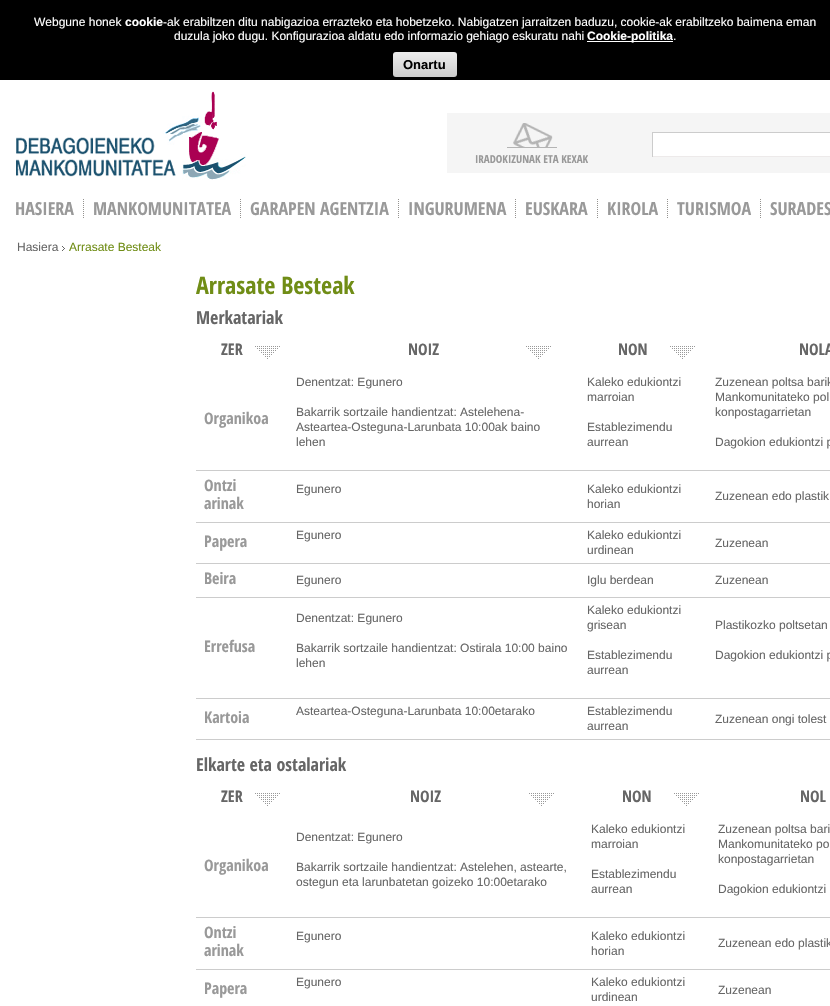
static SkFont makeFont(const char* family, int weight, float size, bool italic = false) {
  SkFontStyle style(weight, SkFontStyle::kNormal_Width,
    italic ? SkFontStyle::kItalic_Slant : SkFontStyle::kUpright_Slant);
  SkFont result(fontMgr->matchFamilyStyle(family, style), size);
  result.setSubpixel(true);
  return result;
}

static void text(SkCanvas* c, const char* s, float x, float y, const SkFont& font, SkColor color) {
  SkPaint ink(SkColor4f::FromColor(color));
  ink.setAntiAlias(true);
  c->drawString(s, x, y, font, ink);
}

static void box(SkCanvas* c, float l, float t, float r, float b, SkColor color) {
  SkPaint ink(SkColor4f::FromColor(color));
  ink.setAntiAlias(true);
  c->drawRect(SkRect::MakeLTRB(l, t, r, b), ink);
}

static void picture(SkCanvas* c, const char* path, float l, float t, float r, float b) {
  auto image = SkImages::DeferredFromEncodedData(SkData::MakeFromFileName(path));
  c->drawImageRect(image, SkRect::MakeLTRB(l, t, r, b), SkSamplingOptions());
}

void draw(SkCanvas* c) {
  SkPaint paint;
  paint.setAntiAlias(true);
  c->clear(0xffffffff);
  box(c, 0, 0, 830, 80, 0xff000000);
  SkFont face1 = makeFont("Liberation Sans", 400, 12);
  text(c, "Webgune honek", 34, 26, face1, 0xffffffff);
  SkFont face2 = makeFont("Liberation Sans", 700, 12);
  text(c, "cookie", 125, 26, face2, 0xffffffff);
  text(c, "-ak erabiltzen ditu nabigazioa errazteko eta hobetzeko. Nabigatzen jarraitzen baduzu, cookie-ak erabiltzeko baimena eman", 163, 26, face1, 0xffffffff);
  text(c, "duzula joko dugu. Konfigurazioa aldatu edo informazio gehiago eskuratu nahi", 174, 40, face1, 0xffffffff);
  box(c, 587, 41, 673, 42, 0xffffffff);
  text(c, "Cookie-politika", 587, 40, face2, 0xffffffff);
  text(c, ".", 673, 40, face1, 0xffffffff);
  {
    const SkColor colors[] = {0xffeeeeee, 0xffcccccc};
    const float stops[] = {0, 1};
    const SkPoint ends[] = {{425, 52}, {425, 77}};
    paint.setShader(SkGradientShader::MakeLinear(ends, colors, stops, 2, SkTileMode::kClamp));
    paint.setAlpha(255);
  }
  c->drawRoundRect(SkRect::MakeLTRB(393, 52, 457, 77), 3, 3, paint);
  SkFont face3 = makeFont("Liberation Sans", 700, 13);
  text(c, "Onartu", 403, 69, face3, 0xff000000);
  picture(c, "img_01.png", 16, 91, 246, 180);
  box(c, 447, 113, 830, 173, 0xfff5f5f5);
  box(c, 653, 133, 830, 156, 0xffffffff);
  box(c, 652, 132, 830, 133, 0xffcccccc);
  box(c, 652, 156, 830, 157, 0xffedeaea);
  box(c, 652, 132, 653, 157, 0xffcccccc);
  picture(c, "img_02.png", 507, 123, 557, 148);
  SkFont face4 = makeFont("Open Sans Condensed", 700, 11);
  text(c, "IRADOKIZUNAK ETA KEXAK", 475, 163, face4, 0xff999999);
  SkFont face5 = makeFont("Open Sans Condensed", 700, 18);
  text(c, "HASIERA", 15, 215, face5, 0xff999999);
  picture(c, "img_03.png", 83, 199, 84, 218);
  text(c, "MANKOMUNITATEA", 93, 215, face5, 0xff999999);
  picture(c, "img_03.png", 240, 199, 241, 218);
  text(c, "GARAPEN AGENTZIA", 250, 215, face5, 0xff999999);
  picture(c, "img_03.png", 398, 199, 399, 218);
  text(c, "INGURUMENA", 408, 215, face5, 0xff999999);
  picture(c, "img_03.png", 515, 199, 516, 218);
  text(c, "EUSKARA", 525, 215, face5, 0xff999999);
  picture(c, "img_03.png", 597, 199, 598, 218);
  text(c, "KIROLA", 607, 215, face5, 0xff999999);
  picture(c, "img_03.png", 667, 199, 668, 218);
  text(c, "TURISMOA", 677, 215, face5, 0xff999999);
  picture(c, "img_03.png", 760, 199, 761, 218);
  text(c, "SURADES", 770, 215, face5, 0xff999999);
  text(c, "Hasiera", 17, 251, face1, 0xff666666);
  picture(c, "img_04.png", 62, 246, 65, 251);
  text(c, "Arrasate Besteak", 69, 251, face1, 0xff708d16);
  SkFont face6 = makeFont("Open Sans Condensed", 700, 24);
  text(c, "Arrasate Besteak", 196, 294, face6, 0xff708d16);
  text(c, "Merkatariak", 196, 324, face5, 0xff666666);
  picture(c, "img_05.png", 255, 346, 280, 359);
  SkFont face7 = makeFont("Open Sans Condensed", 700, 16);
  text(c, "ZER", 221, 355, face7, 0xff666666);
  picture(c, "img_05.png", 526, 346, 551, 359);
  text(c, "NOIZ", 408, 355, face7, 0xff666666);
  picture(c, "img_05.png", 670, 346, 695, 359);
  text(c, "NON", 618, 355, face7, 0xff666666);
  text(c, "NOLA", 799, 355, face7, 0xff666666);
  text(c, "Organikoa", 204, 424, face7, 0xff999999);
  text(c, "Denentzat: Egunero", 296, 386, face1, 0xff666666);
  text(c, "Bakarrik sortzaile handientzat: Astelehena-", 296, 416, face1, 0xff666666);
  text(c, "Asteartea-Osteguna-Larunbata 10:00ak baino", 296, 431, face1, 0xff666666);
  text(c, "lehen", 296, 446, face1, 0xff666666);
  text(c, "Kaleko edukiontzi", 587, 386, face1, 0xff666666);
  text(c, "marroian", 587, 401, face1, 0xff666666);
  text(c, "Establezimendu", 587, 431, face1, 0xff666666);
  text(c, "aurrean", 587, 446, face1, 0xff666666);
  box(c, 196, 470, 830, 471, 0xffcccccc);
  text(c, "Zuzenean poltsa barik", 715, 386, face1, 0xff666666);
  text(c, "Mankomunitateko pol", 715, 401, face1, 0xff666666);
  text(c, "konpostagarrietan", 715, 416, face1, 0xff666666);
  text(c, "Dagokion edukiontzi p", 715, 446, face1, 0xff666666);
  text(c, "Ontzi", 204, 491, face7, 0xff999999);
  text(c, "arinak", 204, 509, face7, 0xff999999);
  text(c, "Egunero", 296, 493, face1, 0xff666666);
  text(c, "Kaleko edukiontzi", 587, 493, face1, 0xff666666);
  text(c, "horian", 587, 508, face1, 0xff666666);
  box(c, 196, 522, 830, 523, 0xffcccccc);
  text(c, "Zuzenean edo plastik", 715, 500, face1, 0xff666666);
  text(c, "Papera", 204, 547, face7, 0xff999999);
  text(c, "Egunero", 296, 539, face1, 0xff666666);
  text(c, "Kaleko edukiontzi", 587, 539, face1, 0xff666666);
  text(c, "urdinean", 587, 554, face1, 0xff666666);
  box(c, 196, 563, 830, 564, 0xffcccccc);
  text(c, "Zuzenean", 715, 547, face1, 0xff666666);
  text(c, "Beira", 204, 584, face7, 0xff999999);
  text(c, "Egunero", 296, 584, face1, 0xff666666);
  text(c, "Iglu berdean", 587, 584, face1, 0xff666666);
  box(c, 196, 597, 830, 598, 0xffcccccc);
  text(c, "Zuzenean", 715, 584, face1, 0xff666666);
  text(c, "Errefusa", 204, 652, face7, 0xff999999);
  text(c, "Denentzat: Egunero", 296, 622, face1, 0xff666666);
  text(c, "Bakarrik sortzaile handientzat: Ostirala 10:00 baino", 296, 652, face1, 0xff666666);
  text(c, "lehen", 296, 667, face1, 0xff666666);
  text(c, "Kaleko edukiontzi", 587, 614, face1, 0xff666666);
  text(c, "grisean", 587, 629, face1, 0xff666666);
  text(c, "Establezimendu", 587, 659, face1, 0xff666666);
  text(c, "aurrean", 587, 674, face1, 0xff666666);
  box(c, 196, 698, 830, 699, 0xffcccccc);
  text(c, "Plastikozko poltsetan", 715, 629, face1, 0xff666666);
  text(c, "Dagokion edukiontzi p", 715, 659, face1, 0xff666666);
  text(c, "Kartoia", 204, 723, face7, 0xff999999);
  text(c, "Asteartea-Osteguna-Larunbata 10:00etarako", 296, 715, face1, 0xff666666);
  text(c, "Establezimendu", 587, 715, face1, 0xff666666);
  text(c, "aurrean", 587, 730, face1, 0xff666666);
  box(c, 196, 739, 830, 740, 0xffcccccc);
  text(c, "Zuzenean ongi tolest", 715, 723, face1, 0xff666666);
  text(c, "Elkarte eta ostalariak", 196, 771, face5, 0xff666666);
  picture(c, "img_05.png", 255, 793, 280, 806);
  text(c, "ZER", 221, 802, face7, 0xff666666);
  picture(c, "img_05.png", 529, 793, 554, 806);
  text(c, "NOIZ", 410, 802, face7, 0xff666666);
  picture(c, "img_05.png", 674, 793, 699, 806);
  text(c, "NON", 622, 802, face7, 0xff666666);
  text(c, "NOL", 800, 802, face7, 0xff666666);
  text(c, "Organikoa", 204, 871, face7, 0xff999999);
  text(c, "Denentzat: Egunero", 296, 841, face1, 0xff666666);
  text(c, "Bakarrik sortzaile handientzat: Astelehen, astearte,", 296, 871, face1, 0xff666666);
  text(c, "ostegun eta larunbatetan goizeko 10:00etarako", 296, 886, face1, 0xff666666);
  text(c, "Kaleko edukiontzi", 591, 833, face1, 0xff666666);
  text(c, "marroian", 591, 848, face1, 0xff666666);
  text(c, "Establezimendu", 591, 878, face1, 0xff666666);
  text(c, "aurrean", 591, 893, face1, 0xff666666);
  box(c, 196, 917, 830, 918, 0xffcccccc);
  text(c, "Zuzenean poltsa bari", 718, 833, face1, 0xff666666);
  text(c, "Mankomunitateko po", 718, 848, face1, 0xff666666);
  text(c, "konpostagarrietan", 718, 863, face1, 0xff666666);
  text(c, "Dagokion edukiontzi", 718, 893, face1, 0xff666666);
  text(c, "Ontzi", 204, 938, face7, 0xff999999);
  text(c, "arinak", 204, 956, face7, 0xff999999);
  text(c, "Egunero", 296, 940, face1, 0xff666666);
  text(c, "Kaleko edukiontzi", 591, 940, face1, 0xff666666);
  text(c, "horian", 591, 955, face1, 0xff666666);
  box(c, 196, 969, 830, 970, 0xffcccccc);
  text(c, "Zuzenean edo plastik", 718, 947, face1, 0xff666666);
  text(c, "Papera", 204, 994, face7, 0xff999999);
  text(c, "Egunero", 296, 986, face1, 0xff666666);
  text(c, "Kaleko edukiontzi", 591, 986, face1, 0xff666666);
  text(c, "urdinean", 591, 1001, face1, 0xff666666);
  text(c, "Zuzenean", 718, 994, face1, 0xff666666);
}
